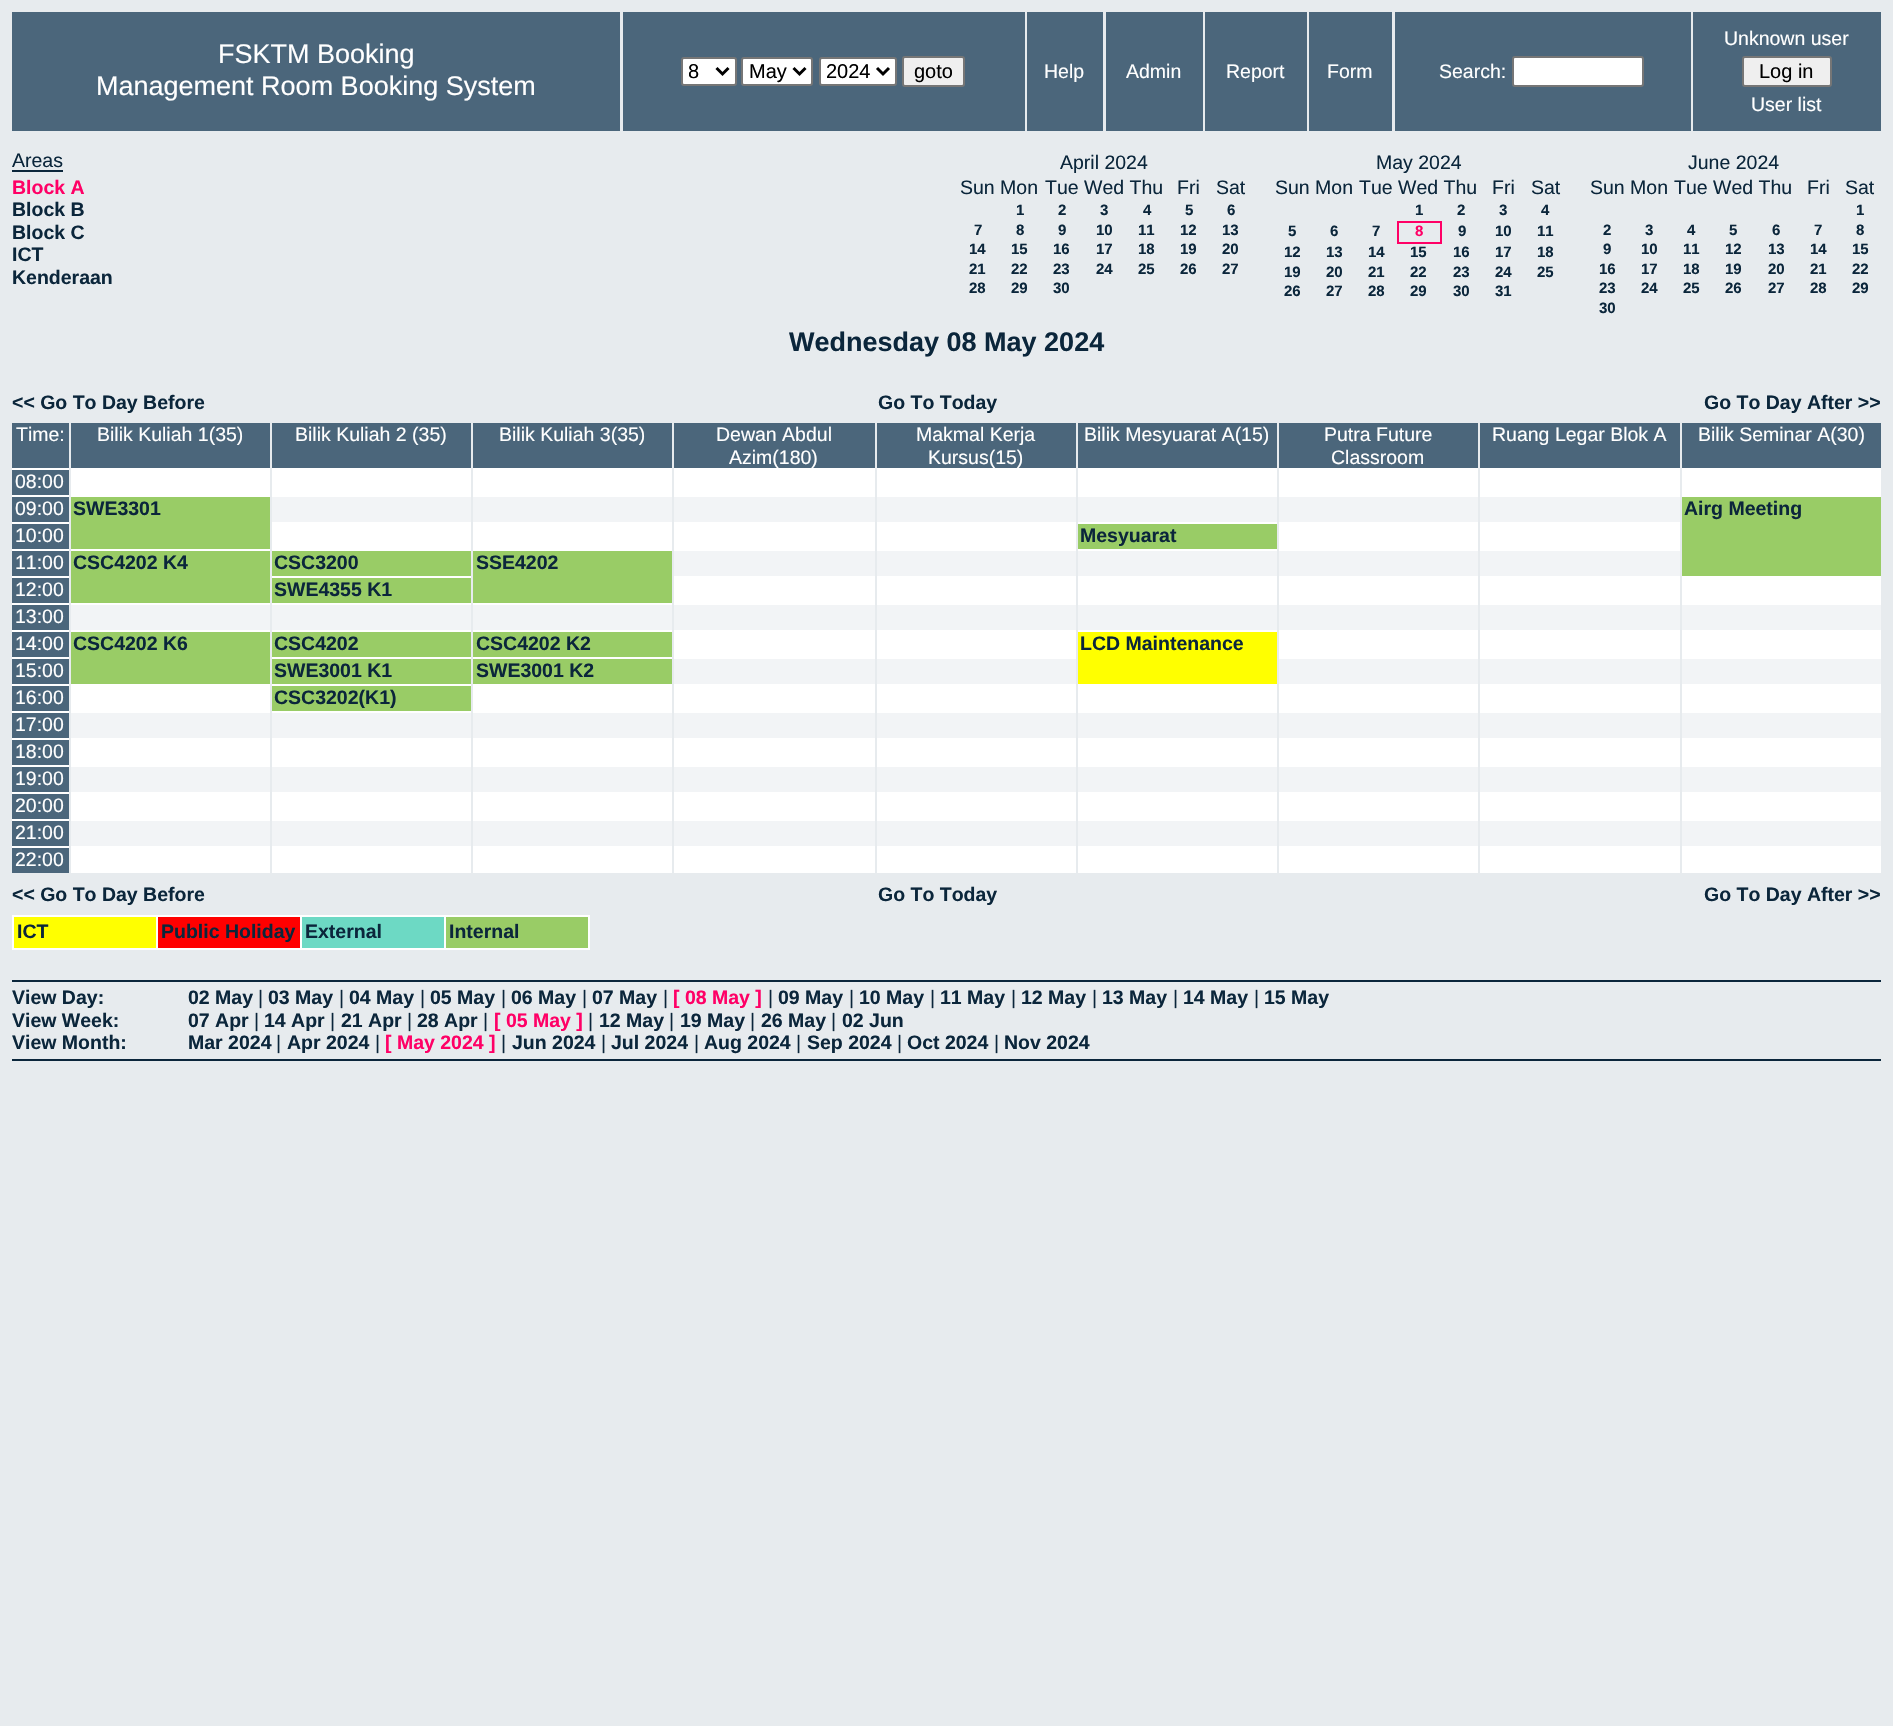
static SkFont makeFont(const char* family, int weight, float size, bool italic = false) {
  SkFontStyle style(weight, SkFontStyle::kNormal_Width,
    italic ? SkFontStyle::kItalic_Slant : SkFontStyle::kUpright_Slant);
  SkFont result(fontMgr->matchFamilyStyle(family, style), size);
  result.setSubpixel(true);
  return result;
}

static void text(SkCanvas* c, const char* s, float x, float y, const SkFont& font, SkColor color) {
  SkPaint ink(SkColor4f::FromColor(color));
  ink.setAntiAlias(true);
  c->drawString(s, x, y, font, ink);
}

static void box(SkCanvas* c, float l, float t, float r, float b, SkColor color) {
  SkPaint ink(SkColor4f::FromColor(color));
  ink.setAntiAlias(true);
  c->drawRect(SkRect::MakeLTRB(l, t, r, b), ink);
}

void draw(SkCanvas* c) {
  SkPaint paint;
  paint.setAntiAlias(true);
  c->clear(0xffe7ebee);
  box(c, 12, 12, 620, 131, 0xff4b667b);
  SkFont face1 = makeFont("Liberation Sans", 400, 27);
  text(c, "FSKTM Booking", 218, 63, face1, 0xffffffff);
  text(c, "Management Room Booking System", 96, 95, face1, 0xffffffff);
  box(c, 623, 12, 1025, 131, 0xff4b667b);
  paint.setColor(0xffffffff);
  c->drawRoundRect(SkRect::MakeLTRB(682, 58, 736, 85), 2, 2, paint);
  paint.setStyle(SkPaint::kStroke_Style);
  paint.setStrokeWidth(2);
  paint.setColor(0xff767676);
  c->drawRoundRect(SkRect::MakeLTRB(682, 58, 736, 85), 2, 2, paint);
  paint.setStrokeWidth(3);
  paint.setColor(0xff000000);
  c->drawPath(SkPathBuilder().moveTo(716.5f, 68).lineTo(722.5f, 74).lineTo(728.5f, 68).detach(), paint);
  c->save();
  c->clipRect(SkRect::MakeLTRB(689, 59, 711, 84));
  SkFont face2 = makeFont("Liberation Sans", 400, 20);
  text(c, "8", 688, 78, face2, 0xff000000);
  c->restore();
  paint.setStyle(SkPaint::kFill_Style);
  paint.setColor(0xffffffff);
  c->drawRoundRect(SkRect::MakeLTRB(742, 58, 812, 85), 2, 2, paint);
  paint.setStyle(SkPaint::kStroke_Style);
  paint.setStrokeWidth(2);
  paint.setColor(0xff767676);
  c->drawRoundRect(SkRect::MakeLTRB(742, 58, 812, 85), 2, 2, paint);
  paint.setStrokeWidth(3);
  paint.setColor(0xff000000);
  c->drawPath(SkPathBuilder().moveTo(793.5f, 68).lineTo(799.5f, 74).lineTo(805.5f, 68).detach(), paint);
  text(c, "May", 749, 78, face2, 0xff000000);
  paint.setStyle(SkPaint::kFill_Style);
  paint.setColor(0xffffffff);
  c->drawRoundRect(SkRect::MakeLTRB(820, 58, 896, 85), 2, 2, paint);
  paint.setStyle(SkPaint::kStroke_Style);
  paint.setStrokeWidth(2);
  paint.setColor(0xff767676);
  c->drawRoundRect(SkRect::MakeLTRB(820, 58, 896, 85), 2, 2, paint);
  paint.setStrokeWidth(3);
  paint.setColor(0xff000000);
  c->drawPath(SkPathBuilder().moveTo(877, 68).lineTo(883, 74).lineTo(889, 68).detach(), paint);
  text(c, "2024", 826, 78, face2, 0xff000000);
  paint.setStyle(SkPaint::kFill_Style);
  paint.setColor(0xffefefef);
  c->drawRoundRect(SkRect::MakeLTRB(903, 57, 964, 86), 2, 2, paint);
  paint.setStyle(SkPaint::kStroke_Style);
  paint.setStrokeWidth(2);
  paint.setColor(0xff767676);
  c->drawRoundRect(SkRect::MakeLTRB(903, 57, 964, 86), 2, 2, paint);
  text(c, "goto", 914, 78, face2, 0xff000000);
  box(c, 1027, 12, 1103, 131, 0xff4b667b);
  SkFont face3 = makeFont("Liberation Sans", 400, 19.5f);
  text(c, "Help", 1044, 78, face3, 0xffffffff);
  box(c, 1106, 12, 1203, 131, 0xff4b667b);
  text(c, "Admin", 1126, 78, face3, 0xffffffff);
  box(c, 1205, 12, 1307, 131, 0xff4b667b);
  text(c, "Report", 1226, 78, face3, 0xffffffff);
  box(c, 1309, 12, 1392, 131, 0xff4b667b);
  text(c, "Form", 1327, 78, face3, 0xffffffff);
  box(c, 1395, 12, 1691, 131, 0xff4b667b);
  text(c, "Search:", 1439, 78, face3, 0xffffffff);
  paint.setStyle(SkPaint::kFill_Style);
  paint.setColor(0xffffffff);
  c->drawRoundRect(SkRect::MakeLTRB(1513, 57, 1643, 86), 2, 2, paint);
  paint.setStyle(SkPaint::kStroke_Style);
  paint.setColor(0xff767676);
  c->drawRoundRect(SkRect::MakeLTRB(1513, 57, 1643, 86), 2, 2, paint);
  box(c, 1693, 12, 1881, 131, 0xff4b667b);
  text(c, "Unknown user", 1724, 45, face3, 0xffffffff);
  paint.setStyle(SkPaint::kFill_Style);
  paint.setColor(0xffefefef);
  c->drawRoundRect(SkRect::MakeLTRB(1743, 57, 1831, 86), 2, 2, paint);
  paint.setStyle(SkPaint::kStroke_Style);
  paint.setColor(0xff767676);
  c->drawRoundRect(SkRect::MakeLTRB(1743, 57, 1831, 86), 2, 2, paint);
  text(c, "Log in", 1759, 78, face2, 0xff000000);
  text(c, "User list", 1751, 111, face3, 0xffffffff);
  text(c, "Areas", 12, 167, face3, 0xff0b263b);
  box(c, 12, 170, 63, 172, 0xff0b263b);
  SkFont face4 = makeFont("Liberation Sans", 700, 19.5f);
  text(c, "Block A", 12, 194, face4, 0xffff0066);
  text(c, "Block B", 12, 216, face4, 0xff0b263b);
  text(c, "Block C", 12, 239, face4, 0xff0b263b);
  text(c, "ICT", 12, 261, face4, 0xff0b263b);
  text(c, "Kenderaan", 12, 284, face4, 0xff0b263b);
  text(c, "April 2024", 1060, 169, face3, 0xff0b263b);
  text(c, "Sun Mon", 960, 194, face3, 0xff0b263b);
  text(c, "Tue Wed Thu", 1045, 194, face3, 0xff0b263b);
  text(c, "Fri", 1177, 194, face3, 0xff0b263b);
  text(c, "Sat", 1216, 194, face3, 0xff0b263b);
  SkFont face5 = makeFont("Liberation Sans", 700, 15);
  text(c, "1", 1016, 215, face5, 0xff0b263b);
  text(c, "2", 1058, 215, face5, 0xff0b263b);
  text(c, "3", 1100, 215, face5, 0xff0b263b);
  text(c, "4", 1143, 215, face5, 0xff0b263b);
  text(c, "5", 1185, 215, face5, 0xff0b263b);
  text(c, "6", 1227, 215, face5, 0xff0b263b);
  text(c, "7", 974, 235, face5, 0xff0b263b);
  text(c, "8", 1016, 235, face5, 0xff0b263b);
  text(c, "9", 1058, 235, face5, 0xff0b263b);
  text(c, "10", 1096, 235, face5, 0xff0b263b);
  text(c, "11", 1138, 235, face5, 0xff0b263b);
  text(c, "12", 1180, 235, face5, 0xff0b263b);
  text(c, "13", 1222, 235, face5, 0xff0b263b);
  text(c, "14", 969, 254, face5, 0xff0b263b);
  text(c, "15", 1011, 254, face5, 0xff0b263b);
  text(c, "16", 1053, 254, face5, 0xff0b263b);
  text(c, "17", 1096, 254, face5, 0xff0b263b);
  text(c, "18", 1138, 254, face5, 0xff0b263b);
  text(c, "19", 1180, 254, face5, 0xff0b263b);
  text(c, "20", 1222, 254, face5, 0xff0b263b);
  text(c, "21", 969, 274, face5, 0xff0b263b);
  text(c, "22", 1011, 274, face5, 0xff0b263b);
  text(c, "23", 1053, 274, face5, 0xff0b263b);
  text(c, "24", 1096, 274, face5, 0xff0b263b);
  text(c, "25", 1138, 274, face5, 0xff0b263b);
  text(c, "26", 1180, 274, face5, 0xff0b263b);
  text(c, "27", 1222, 274, face5, 0xff0b263b);
  text(c, "28", 969, 293, face5, 0xff0b263b);
  text(c, "29", 1011, 293, face5, 0xff0b263b);
  text(c, "30", 1053, 293, face5, 0xff0b263b);
  text(c, "May 2024", 1376, 169, face3, 0xff0b263b);
  text(c, "Sun Mon", 1275, 194, face3, 0xff0b263b);
  text(c, "Tue Wed Thu", 1359, 194, face3, 0xff0b263b);
  text(c, "Fri", 1492, 194, face3, 0xff0b263b);
  text(c, "Sat", 1531, 194, face3, 0xff0b263b);
  text(c, "1", 1415, 215, face5, 0xff0b263b);
  text(c, "2", 1457, 215, face5, 0xff0b263b);
  text(c, "3", 1499, 215, face5, 0xff0b263b);
  text(c, "4", 1541, 215, face5, 0xff0b263b);
  text(c, "5", 1288, 236, face5, 0xff0b263b);
  text(c, "6", 1330, 236, face5, 0xff0b263b);
  text(c, "7", 1372, 236, face5, 0xff0b263b);
  box(c, 1397, 221, 1442, 223, 0xffff0066);
  box(c, 1440, 221, 1442, 243, 0xffff0066);
  box(c, 1397, 242, 1442, 244, 0xffff0066);
  box(c, 1397, 221, 1399, 243, 0xffff0066);
  text(c, "8", 1415, 236, face5, 0xffff0066);
  text(c, "9", 1458, 236, face5, 0xff0b263b);
  text(c, "10", 1495, 236, face5, 0xff0b263b);
  text(c, "11", 1537, 236, face5, 0xff0b263b);
  text(c, "12", 1284, 257, face5, 0xff0b263b);
  text(c, "13", 1326, 257, face5, 0xff0b263b);
  text(c, "14", 1368, 257, face5, 0xff0b263b);
  text(c, "15", 1410, 257, face5, 0xff0b263b);
  text(c, "16", 1453, 257, face5, 0xff0b263b);
  text(c, "17", 1495, 257, face5, 0xff0b263b);
  text(c, "18", 1537, 257, face5, 0xff0b263b);
  text(c, "19", 1284, 277, face5, 0xff0b263b);
  text(c, "20", 1326, 277, face5, 0xff0b263b);
  text(c, "21", 1368, 277, face5, 0xff0b263b);
  text(c, "22", 1410, 277, face5, 0xff0b263b);
  text(c, "23", 1453, 277, face5, 0xff0b263b);
  text(c, "24", 1495, 277, face5, 0xff0b263b);
  text(c, "25", 1537, 277, face5, 0xff0b263b);
  text(c, "26", 1284, 296, face5, 0xff0b263b);
  text(c, "27", 1326, 296, face5, 0xff0b263b);
  text(c, "28", 1368, 296, face5, 0xff0b263b);
  text(c, "29", 1410, 296, face5, 0xff0b263b);
  text(c, "30", 1453, 296, face5, 0xff0b263b);
  text(c, "31", 1495, 296, face5, 0xff0b263b);
  text(c, "June 2024", 1688, 169, face3, 0xff0b263b);
  text(c, "Sun Mon", 1590, 194, face3, 0xff0b263b);
  text(c, "Tue Wed Thu", 1674, 194, face3, 0xff0b263b);
  text(c, "Fri", 1807, 194, face3, 0xff0b263b);
  text(c, "Sat", 1845, 194, face3, 0xff0b263b);
  text(c, "1", 1856, 215, face5, 0xff0b263b);
  text(c, "2", 1603, 235, face5, 0xff0b263b);
  text(c, "3", 1645, 235, face5, 0xff0b263b);
  text(c, "4", 1687, 235, face5, 0xff0b263b);
  text(c, "5", 1729, 235, face5, 0xff0b263b);
  text(c, "6", 1772, 235, face5, 0xff0b263b);
  text(c, "7", 1814, 235, face5, 0xff0b263b);
  text(c, "8", 1856, 235, face5, 0xff0b263b);
  text(c, "9", 1603, 254, face5, 0xff0b263b);
  text(c, "10", 1641, 254, face5, 0xff0b263b);
  text(c, "11", 1683, 254, face5, 0xff0b263b);
  text(c, "12", 1725, 254, face5, 0xff0b263b);
  text(c, "13", 1768, 254, face5, 0xff0b263b);
  text(c, "14", 1810, 254, face5, 0xff0b263b);
  text(c, "15", 1852, 254, face5, 0xff0b263b);
  text(c, "16", 1599, 274, face5, 0xff0b263b);
  text(c, "17", 1641, 274, face5, 0xff0b263b);
  text(c, "18", 1683, 274, face5, 0xff0b263b);
  text(c, "19", 1725, 274, face5, 0xff0b263b);
  text(c, "20", 1768, 274, face5, 0xff0b263b);
  text(c, "21", 1810, 274, face5, 0xff0b263b);
  text(c, "22", 1852, 274, face5, 0xff0b263b);
  text(c, "23", 1599, 293, face5, 0xff0b263b);
  text(c, "24", 1641, 293, face5, 0xff0b263b);
  text(c, "25", 1683, 293, face5, 0xff0b263b);
  text(c, "26", 1725, 293, face5, 0xff0b263b);
  text(c, "27", 1768, 293, face5, 0xff0b263b);
  text(c, "28", 1810, 293, face5, 0xff0b263b);
  text(c, "29", 1852, 293, face5, 0xff0b263b);
  text(c, "30", 1599, 313, face5, 0xff0b263b);
  SkFont face6 = makeFont("Liberation Sans", 700, 27);
  text(c, "Wednesday 08 May 2024", 789, 351, face6, 0xff0b263b);
  text(c, "<< Go To Day Before", 12, 409, face4, 0xff0b263b);
  text(c, "Go To Today", 878, 409, face4, 0xff0b263b);
  text(c, "Go To Day After >>", 1704, 409, face4, 0xff0b263b);
  box(c, 12, 423, 69, 468, 0xff4b667b);
  text(c, "Time:", 16, 441, face3, 0xffffffff);
  box(c, 71, 423, 270, 468, 0xff4b667b);
  text(c, "Bilik Kuliah 1(35)", 97, 441, face3, 0xffffffff);
  box(c, 272, 423, 471, 468, 0xff4b667b);
  text(c, "Bilik Kuliah 2 (35)", 295, 441, face3, 0xffffffff);
  box(c, 473, 423, 672, 468, 0xff4b667b);
  text(c, "Bilik Kuliah 3(35)", 499, 441, face3, 0xffffffff);
  box(c, 674, 423, 875, 468, 0xff4b667b);
  text(c, "Dewan Abdul", 716, 441, face3, 0xffffffff);
  box(c, 674, 468, 875, 495, 0xffffffff);
  text(c, "Azim(180)", 729, 464, face3, 0xffffffff);
  box(c, 877, 423, 1076, 468, 0xff4b667b);
  text(c, "Makmal Kerja", 916, 441, face3, 0xffffffff);
  box(c, 877, 468, 1076, 495, 0xffffffff);
  text(c, "Kursus(15)", 928, 464, face3, 0xffffffff);
  box(c, 1078, 423, 1277, 468, 0xff4b667b);
  text(c, "Bilik Mesyuarat A(15)", 1084, 441, face3, 0xffffffff);
  box(c, 1279, 423, 1478, 468, 0xff4b667b);
  text(c, "Putra Future", 1324, 441, face3, 0xffffffff);
  text(c, "Classroom", 1331, 464, face3, 0xffffffff);
  box(c, 1480, 423, 1680, 468, 0xff4b667b);
  text(c, "Ruang Legar Blok A", 1492, 441, face3, 0xffffffff);
  box(c, 1682, 423, 1881, 468, 0xff4b667b);
  text(c, "Bilik Seminar A(30)", 1698, 441, face3, 0xffffffff);
  box(c, 12, 470, 69, 495, 0xff4b667b);
  box(c, 12, 468, 69, 470, 0xffffffff);
  text(c, "08:00", 15, 488, face3, 0xffffffff);
  box(c, 71, 468, 270, 495, 0xffffffff);
  box(c, 272, 468, 471, 495, 0xffffffff);
  box(c, 473, 468, 672, 495, 0xffffffff);
  box(c, 1078, 468, 1277, 495, 0xffffffff);
  box(c, 1279, 468, 1478, 495, 0xffffffff);
  box(c, 1480, 468, 1680, 495, 0xffffffff);
  box(c, 1682, 468, 1881, 495, 0xffffffff);
  box(c, 12, 497, 69, 522, 0xff4b667b);
  box(c, 12, 495, 1881, 497, 0xffffffff);
  text(c, "09:00", 15, 515, face3, 0xffffffff);
  box(c, 71, 497, 270, 549, 0xff99cc66);
  box(c, 69, 495, 71, 497, 0xffe7ebee);
  text(c, "SWE3301", 73, 515, face4, 0xff0b263b);
  box(c, 272, 497, 471, 522, 0xfff2f4f6);
  box(c, 270, 495, 272, 497, 0xffe7ebee);
  box(c, 473, 497, 672, 522, 0xfff2f4f6);
  box(c, 471, 495, 473, 497, 0xffe7ebee);
  box(c, 674, 497, 875, 522, 0xfff2f4f6);
  box(c, 672, 495, 674, 497, 0xffe7ebee);
  box(c, 877, 497, 1076, 522, 0xfff2f4f6);
  box(c, 875, 495, 877, 497, 0xffe7ebee);
  box(c, 1078, 497, 1277, 522, 0xfff2f4f6);
  box(c, 1076, 495, 1078, 497, 0xffe7ebee);
  box(c, 1279, 497, 1478, 522, 0xfff2f4f6);
  box(c, 1277, 495, 1279, 497, 0xffe7ebee);
  box(c, 1480, 497, 1680, 522, 0xfff2f4f6);
  box(c, 1478, 495, 1480, 497, 0xffe7ebee);
  box(c, 1682, 497, 1881, 576, 0xff99cc66);
  box(c, 1680, 495, 1682, 497, 0xffe7ebee);
  text(c, "Airg Meeting", 1684, 515, face4, 0xff0b263b);
  box(c, 12, 524, 69, 549, 0xff4b667b);
  box(c, 12, 522, 69, 524, 0xffffffff);
  text(c, "10:00", 15, 542, face3, 0xffffffff);
  box(c, 272, 522, 471, 549, 0xffffffff);
  box(c, 473, 522, 672, 549, 0xffffffff);
  box(c, 674, 522, 875, 549, 0xffffffff);
  box(c, 877, 522, 1076, 549, 0xffffffff);
  box(c, 1078, 524, 1277, 549, 0xff99cc66);
  box(c, 1076, 522, 1277, 524, 0xffffffff);
  box(c, 1076, 522, 1078, 524, 0xffe7ebee);
  text(c, "Mesyuarat", 1080, 542, face4, 0xff0b263b);
  box(c, 1279, 522, 1478, 549, 0xffffffff);
  box(c, 1480, 522, 1680, 549, 0xffffffff);
  box(c, 12, 551, 69, 576, 0xff4b667b);
  box(c, 12, 549, 1680, 551, 0xffffffff);
  text(c, "11:00", 15, 569, face3, 0xffffffff);
  box(c, 71, 551, 270, 603, 0xff99cc66);
  box(c, 69, 549, 71, 551, 0xffe7ebee);
  text(c, "CSC4202 K4", 73, 569, face4, 0xff0b263b);
  box(c, 272, 551, 471, 576, 0xff99cc66);
  box(c, 270, 549, 272, 551, 0xffe7ebee);
  text(c, "CSC3200", 274, 569, face4, 0xff0b263b);
  box(c, 473, 551, 672, 603, 0xff99cc66);
  box(c, 471, 549, 473, 551, 0xffe7ebee);
  text(c, "SSE4202", 476, 569, face4, 0xff0b263b);
  box(c, 674, 551, 875, 576, 0xfff2f4f6);
  box(c, 672, 549, 674, 551, 0xffe7ebee);
  box(c, 877, 551, 1076, 576, 0xfff2f4f6);
  box(c, 875, 549, 877, 551, 0xffe7ebee);
  box(c, 1078, 551, 1277, 576, 0xfff2f4f6);
  box(c, 1076, 549, 1078, 551, 0xffe7ebee);
  box(c, 1279, 551, 1478, 576, 0xfff2f4f6);
  box(c, 1277, 549, 1279, 551, 0xffe7ebee);
  box(c, 1480, 551, 1680, 576, 0xfff2f4f6);
  box(c, 1478, 549, 1480, 551, 0xffe7ebee);
  box(c, 12, 578, 69, 603, 0xff4b667b);
  box(c, 12, 576, 69, 578, 0xffffffff);
  text(c, "12:00", 15, 596, face3, 0xffffffff);
  box(c, 272, 578, 471, 603, 0xff99cc66);
  box(c, 270, 576, 471, 578, 0xffffffff);
  box(c, 270, 576, 272, 578, 0xffe7ebee);
  text(c, "SWE4355 K1", 274, 596, face4, 0xff0b263b);
  box(c, 674, 576, 875, 603, 0xffffffff);
  box(c, 877, 576, 1076, 603, 0xffffffff);
  box(c, 1078, 576, 1277, 603, 0xffffffff);
  box(c, 1279, 576, 1478, 603, 0xffffffff);
  box(c, 1480, 576, 1680, 603, 0xffffffff);
  box(c, 1682, 576, 1881, 603, 0xffffffff);
  box(c, 12, 605, 69, 630, 0xff4b667b);
  box(c, 12, 603, 1881, 605, 0xffffffff);
  text(c, "13:00", 15, 623, face3, 0xffffffff);
  box(c, 71, 605, 270, 630, 0xfff2f4f6);
  box(c, 69, 603, 71, 605, 0xffe7ebee);
  box(c, 272, 605, 471, 630, 0xfff2f4f6);
  box(c, 270, 603, 272, 605, 0xffe7ebee);
  box(c, 473, 605, 672, 630, 0xfff2f4f6);
  box(c, 471, 603, 473, 605, 0xffe7ebee);
  box(c, 674, 605, 875, 630, 0xfff2f4f6);
  box(c, 672, 603, 674, 605, 0xffe7ebee);
  box(c, 877, 605, 1076, 630, 0xfff2f4f6);
  box(c, 875, 603, 877, 605, 0xffe7ebee);
  box(c, 1078, 605, 1277, 630, 0xfff2f4f6);
  box(c, 1076, 603, 1078, 605, 0xffe7ebee);
  box(c, 1279, 605, 1478, 630, 0xfff2f4f6);
  box(c, 1277, 603, 1279, 605, 0xffe7ebee);
  box(c, 1480, 605, 1680, 630, 0xfff2f4f6);
  box(c, 1478, 603, 1480, 605, 0xffe7ebee);
  box(c, 1682, 605, 1881, 630, 0xfff2f4f6);
  box(c, 1680, 603, 1682, 605, 0xffe7ebee);
  box(c, 12, 632, 69, 657, 0xff4b667b);
  box(c, 12, 630, 672, 632, 0xffffffff);
  text(c, "14:00", 15, 650, face3, 0xffffffff);
  box(c, 71, 632, 270, 684, 0xff99cc66);
  box(c, 69, 630, 71, 632, 0xffe7ebee);
  text(c, "CSC4202 K6", 73, 650, face4, 0xff0b263b);
  box(c, 272, 632, 471, 657, 0xff99cc66);
  box(c, 270, 630, 272, 632, 0xffe7ebee);
  text(c, "CSC4202", 274, 650, face4, 0xff0b263b);
  box(c, 473, 632, 672, 657, 0xff99cc66);
  box(c, 471, 630, 473, 632, 0xffe7ebee);
  text(c, "CSC4202 K2", 476, 650, face4, 0xff0b263b);
  box(c, 674, 630, 875, 657, 0xffffffff);
  box(c, 877, 630, 1076, 657, 0xffffffff);
  box(c, 1078, 632, 1277, 684, 0xffffff00);
  box(c, 1076, 630, 1277, 632, 0xffffffff);
  box(c, 1076, 630, 1078, 632, 0xffe7ebee);
  text(c, "LCD Maintenance", 1080, 650, face4, 0xff0b263b);
  box(c, 1279, 630, 1478, 657, 0xffffffff);
  box(c, 1480, 630, 1680, 657, 0xffffffff);
  box(c, 1682, 630, 1881, 657, 0xffffffff);
  box(c, 674, 659, 875, 684, 0xfff2f4f6);
  box(c, 270, 657, 1076, 659, 0xffffffff);
  box(c, 672, 657, 674, 659, 0xffe7ebee);
  box(c, 877, 659, 1076, 684, 0xfff2f4f6);
  box(c, 875, 657, 877, 659, 0xffe7ebee);
  box(c, 1279, 659, 1478, 684, 0xfff2f4f6);
  box(c, 1277, 657, 1881, 659, 0xffffffff);
  box(c, 1277, 657, 1279, 659, 0xffe7ebee);
  box(c, 12, 659, 69, 684, 0xff4b667b);
  box(c, 12, 657, 69, 659, 0xffffffff);
  text(c, "15:00", 15, 677, face3, 0xffffffff);
  box(c, 272, 659, 471, 684, 0xff99cc66);
  box(c, 270, 657, 272, 659, 0xffe7ebee);
  text(c, "SWE3001 K1", 274, 677, face4, 0xff0b263b);
  box(c, 473, 659, 672, 684, 0xff99cc66);
  box(c, 471, 657, 473, 659, 0xffe7ebee);
  text(c, "SWE3001 K2", 476, 677, face4, 0xff0b263b);
  box(c, 1480, 659, 1680, 684, 0xfff2f4f6);
  box(c, 1478, 657, 1480, 659, 0xffe7ebee);
  box(c, 1682, 659, 1881, 684, 0xfff2f4f6);
  box(c, 1680, 657, 1682, 659, 0xffe7ebee);
  box(c, 12, 686, 69, 711, 0xff4b667b);
  box(c, 12, 684, 69, 686, 0xffffffff);
  text(c, "16:00", 15, 704, face3, 0xffffffff);
  box(c, 71, 684, 270, 711, 0xffffffff);
  box(c, 272, 686, 471, 711, 0xff99cc66);
  box(c, 270, 684, 471, 686, 0xffffffff);
  box(c, 270, 684, 272, 686, 0xffe7ebee);
  text(c, "CSC3202(K1)", 274, 704, face4, 0xff0b263b);
  box(c, 473, 684, 672, 711, 0xffffffff);
  box(c, 674, 684, 875, 711, 0xffffffff);
  box(c, 877, 684, 1076, 711, 0xffffffff);
  box(c, 1078, 684, 1277, 711, 0xffffffff);
  box(c, 1279, 684, 1478, 711, 0xffffffff);
  box(c, 1480, 684, 1680, 711, 0xffffffff);
  box(c, 1682, 684, 1881, 711, 0xffffffff);
  box(c, 12, 713, 69, 738, 0xff4b667b);
  box(c, 12, 711, 1881, 713, 0xffffffff);
  text(c, "17:00", 15, 731, face3, 0xffffffff);
  box(c, 71, 713, 270, 738, 0xfff2f4f6);
  box(c, 69, 711, 71, 713, 0xffe7ebee);
  box(c, 272, 713, 471, 738, 0xfff2f4f6);
  box(c, 270, 711, 272, 713, 0xffe7ebee);
  box(c, 473, 713, 672, 738, 0xfff2f4f6);
  box(c, 471, 711, 473, 713, 0xffe7ebee);
  box(c, 674, 713, 875, 738, 0xfff2f4f6);
  box(c, 672, 711, 674, 713, 0xffe7ebee);
  box(c, 877, 713, 1076, 738, 0xfff2f4f6);
  box(c, 875, 711, 877, 713, 0xffe7ebee);
  box(c, 1078, 713, 1277, 738, 0xfff2f4f6);
  box(c, 1076, 711, 1078, 713, 0xffe7ebee);
  box(c, 1279, 713, 1478, 738, 0xfff2f4f6);
  box(c, 1277, 711, 1279, 713, 0xffe7ebee);
  box(c, 1480, 713, 1680, 738, 0xfff2f4f6);
  box(c, 1478, 711, 1480, 713, 0xffe7ebee);
  box(c, 1682, 713, 1881, 738, 0xfff2f4f6);
  box(c, 1680, 711, 1682, 713, 0xffe7ebee);
  box(c, 12, 740, 69, 765, 0xff4b667b);
  box(c, 12, 738, 69, 740, 0xffffffff);
  text(c, "18:00", 15, 758, face3, 0xffffffff);
  box(c, 71, 738, 270, 765, 0xffffffff);
  box(c, 272, 738, 471, 765, 0xffffffff);
  box(c, 473, 738, 672, 765, 0xffffffff);
  box(c, 674, 738, 875, 765, 0xffffffff);
  box(c, 877, 738, 1076, 765, 0xffffffff);
  box(c, 1078, 738, 1277, 765, 0xffffffff);
  box(c, 1279, 738, 1478, 765, 0xffffffff);
  box(c, 1480, 738, 1680, 765, 0xffffffff);
  box(c, 1682, 738, 1881, 765, 0xffffffff);
  box(c, 12, 767, 69, 792, 0xff4b667b);
  box(c, 12, 765, 1881, 767, 0xffffffff);
  text(c, "19:00", 15, 785, face3, 0xffffffff);
  box(c, 71, 767, 270, 792, 0xfff2f4f6);
  box(c, 69, 765, 71, 767, 0xffe7ebee);
  box(c, 272, 767, 471, 792, 0xfff2f4f6);
  box(c, 270, 765, 272, 767, 0xffe7ebee);
  box(c, 473, 767, 672, 792, 0xfff2f4f6);
  box(c, 471, 765, 473, 767, 0xffe7ebee);
  box(c, 674, 767, 875, 792, 0xfff2f4f6);
  box(c, 672, 765, 674, 767, 0xffe7ebee);
  box(c, 877, 767, 1076, 792, 0xfff2f4f6);
  box(c, 875, 765, 877, 767, 0xffe7ebee);
  box(c, 1078, 767, 1277, 792, 0xfff2f4f6);
  box(c, 1076, 765, 1078, 767, 0xffe7ebee);
  box(c, 1279, 767, 1478, 792, 0xfff2f4f6);
  box(c, 1277, 765, 1279, 767, 0xffe7ebee);
  box(c, 1480, 767, 1680, 792, 0xfff2f4f6);
  box(c, 1478, 765, 1480, 767, 0xffe7ebee);
  box(c, 1682, 767, 1881, 792, 0xfff2f4f6);
  box(c, 1680, 765, 1682, 767, 0xffe7ebee);
  box(c, 12, 794, 69, 819, 0xff4b667b);
  box(c, 12, 792, 69, 794, 0xffffffff);
  text(c, "20:00", 15, 812, face3, 0xffffffff);
  box(c, 71, 792, 270, 819, 0xffffffff);
  box(c, 272, 792, 471, 819, 0xffffffff);
  box(c, 473, 792, 672, 819, 0xffffffff);
  box(c, 674, 792, 875, 819, 0xffffffff);
  box(c, 877, 792, 1076, 819, 0xffffffff);
  box(c, 1078, 792, 1277, 819, 0xffffffff);
  box(c, 1279, 792, 1478, 819, 0xffffffff);
  box(c, 1480, 792, 1680, 819, 0xffffffff);
  box(c, 1682, 792, 1881, 819, 0xffffffff);
  box(c, 12, 821, 69, 846, 0xff4b667b);
  box(c, 12, 819, 1881, 821, 0xffffffff);
  text(c, "21:00", 15, 839, face3, 0xffffffff);
  box(c, 71, 821, 270, 846, 0xfff2f4f6);
  box(c, 69, 819, 71, 821, 0xffe7ebee);
  box(c, 272, 821, 471, 846, 0xfff2f4f6);
  box(c, 270, 819, 272, 821, 0xffe7ebee);
  box(c, 473, 821, 672, 846, 0xfff2f4f6);
  box(c, 471, 819, 473, 821, 0xffe7ebee);
  box(c, 674, 821, 875, 846, 0xfff2f4f6);
  box(c, 672, 819, 674, 821, 0xffe7ebee);
  box(c, 877, 821, 1076, 846, 0xfff2f4f6);
  box(c, 875, 819, 877, 821, 0xffe7ebee);
  box(c, 1078, 821, 1277, 846, 0xfff2f4f6);
  box(c, 1076, 819, 1078, 821, 0xffe7ebee);
  box(c, 1279, 821, 1478, 846, 0xfff2f4f6);
  box(c, 1277, 819, 1279, 821, 0xffe7ebee);
  box(c, 1480, 821, 1680, 846, 0xfff2f4f6);
  box(c, 1478, 819, 1480, 821, 0xffe7ebee);
  box(c, 1682, 821, 1881, 846, 0xfff2f4f6);
  box(c, 1680, 819, 1682, 821, 0xffe7ebee);
  box(c, 12, 848, 69, 873, 0xff4b667b);
  box(c, 12, 846, 69, 848, 0xffffffff);
  text(c, "22:00", 15, 866, face3, 0xffffffff);
  box(c, 71, 846, 270, 873, 0xffffffff);
  box(c, 272, 846, 471, 873, 0xffffffff);
  box(c, 473, 846, 672, 873, 0xffffffff);
  box(c, 674, 846, 875, 873, 0xffffffff);
  box(c, 877, 846, 1076, 873, 0xffffffff);
  box(c, 1078, 846, 1277, 873, 0xffffffff);
  box(c, 1279, 846, 1478, 873, 0xffffffff);
  box(c, 1480, 846, 1680, 873, 0xffffffff);
  box(c, 1682, 846, 1881, 873, 0xffffffff);
  text(c, "<< Go To Day Before", 12, 901, face4, 0xff0b263b);
  text(c, "Go To Today", 878, 901, face4, 0xff0b263b);
  text(c, "Go To Day After >>", 1704, 901, face4, 0xff0b263b);
  box(c, 14, 917, 156, 948, 0xffffff00);
  box(c, 444, 915, 590, 917, 0xffffffff);
  box(c, 588, 915, 590, 950, 0xffffffff);
  box(c, 444, 948, 590, 950, 0xffffffff);
  box(c, 444, 915, 446, 950, 0xffffffff);
  box(c, 300, 915, 446, 917, 0xffffffff);
  box(c, 300, 948, 446, 950, 0xffffffff);
  box(c, 300, 915, 302, 950, 0xffffffff);
  box(c, 156, 915, 302, 917, 0xffffffff);
  box(c, 156, 948, 302, 950, 0xffffffff);
  box(c, 156, 915, 158, 950, 0xffffffff);
  box(c, 12, 915, 158, 917, 0xffffffff);
  box(c, 12, 948, 158, 950, 0xffffffff);
  box(c, 12, 915, 14, 950, 0xffffffff);
  text(c, "ICT", 17, 938, face4, 0xff0b263b);
  box(c, 158, 917, 300, 948, 0xffff0000);
  text(c, "Public Holiday", 161, 938, face4, 0xff0b263b);
  box(c, 302, 917, 444, 948, 0xff6dd9c4);
  text(c, "External", 305, 938, face4, 0xff0b263b);
  box(c, 446, 917, 588, 948, 0xff99cc66);
  text(c, "Internal", 449, 938, face4, 0xff0b263b);
  box(c, 12, 980, 1881, 982, 0xff0b263b);
  box(c, 12, 1059, 1881, 1061, 0xff0b263b);
  text(c, "View Day:", 12, 1004, face4, 0xff0b263b);
  text(c, "02 May", 188, 1004, face4, 0xff0b263b);
  text(c, "|", 258, 1004, face3, 0xff0b263b);
  text(c, "03 May", 268, 1004, face4, 0xff0b263b);
  text(c, "|", 339, 1004, face3, 0xff0b263b);
  text(c, "04 May", 349, 1004, face4, 0xff0b263b);
  text(c, "|", 420, 1004, face3, 0xff0b263b);
  text(c, "05 May", 430, 1004, face4, 0xff0b263b);
  text(c, "|", 501, 1004, face3, 0xff0b263b);
  text(c, "06 May", 511, 1004, face4, 0xff0b263b);
  text(c, "|", 582, 1004, face3, 0xff0b263b);
  text(c, "07 May", 592, 1004, face4, 0xff0b263b);
  text(c, "|", 663, 1004, face3, 0xff0b263b);
  text(c, "[ 08 May ]", 673, 1004, face4, 0xffff0066);
  text(c, "|", 768, 1004, face3, 0xff0b263b);
  text(c, "09 May", 778, 1004, face4, 0xff0b263b);
  text(c, "|", 849, 1004, face3, 0xff0b263b);
  text(c, "10 May", 859, 1004, face4, 0xff0b263b);
  text(c, "|", 930, 1004, face3, 0xff0b263b);
  text(c, "11 May", 940, 1004, face4, 0xff0b263b);
  text(c, "|", 1011, 1004, face3, 0xff0b263b);
  text(c, "12 May", 1021, 1004, face4, 0xff0b263b);
  text(c, "|", 1092, 1004, face3, 0xff0b263b);
  text(c, "13 May", 1102, 1004, face4, 0xff0b263b);
  text(c, "|", 1173, 1004, face3, 0xff0b263b);
  text(c, "14 May", 1183, 1004, face4, 0xff0b263b);
  text(c, "|", 1254, 1004, face3, 0xff0b263b);
  text(c, "15 May", 1264, 1004, face4, 0xff0b263b);
  text(c, "View Week:", 12, 1027, face4, 0xff0b263b);
  text(c, "07 Apr", 188, 1027, face4, 0xff0b263b);
  text(c, "|", 254, 1027, face3, 0xff0b263b);
  text(c, "14 Apr", 264, 1027, face4, 0xff0b263b);
  text(c, "|", 330, 1027, face3, 0xff0b263b);
  text(c, "21 Apr", 341, 1027, face4, 0xff0b263b);
  text(c, "|", 407, 1027, face3, 0xff0b263b);
  text(c, "28 Apr", 417, 1027, face4, 0xff0b263b);
  text(c, "|", 483, 1027, face3, 0xff0b263b);
  text(c, "[ 05 May ]", 494, 1027, face4, 0xffff0066);
  text(c, "|", 588, 1027, face3, 0xff0b263b);
  text(c, "12 May", 599, 1027, face4, 0xff0b263b);
  text(c, "|", 669, 1027, face3, 0xff0b263b);
  text(c, "19 May", 680, 1027, face4, 0xff0b263b);
  text(c, "|", 750, 1027, face3, 0xff0b263b);
  text(c, "26 May", 761, 1027, face4, 0xff0b263b);
  text(c, "|", 831, 1027, face3, 0xff0b263b);
  text(c, "02 Jun", 842, 1027, face4, 0xff0b263b);
  text(c, "View Month:", 12, 1049, face4, 0xff0b263b);
  text(c, "Mar 2024", 188, 1049, face4, 0xff0b263b);
  text(c, "|", 276, 1049, face3, 0xff0b263b);
  text(c, "Apr 2024", 287, 1049, face4, 0xff0b263b);
  text(c, "|", 375, 1049, face3, 0xff0b263b);
  text(c, "[ May 2024 ]", 385, 1049, face4, 0xffff0066);
  text(c, "|", 501, 1049, face3, 0xff0b263b);
  text(c, "Jun 2024", 512, 1049, face4, 0xff0b263b);
  text(c, "|", 601, 1049, face3, 0xff0b263b);
  text(c, "Jul 2024", 611, 1049, face4, 0xff0b263b);
  text(c, "|", 694, 1049, face3, 0xff0b263b);
  text(c, "Aug 2024", 704, 1049, face4, 0xff0b263b);
  text(c, "|", 796, 1049, face3, 0xff0b263b);
  text(c, "Sep 2024", 807, 1049, face4, 0xff0b263b);
  text(c, "|", 897, 1049, face3, 0xff0b263b);
  text(c, "Oct 2024", 907, 1049, face4, 0xff0b263b);
  text(c, "|", 994, 1049, face3, 0xff0b263b);
  text(c, "Nov 2024", 1004, 1049, face4, 0xff0b263b);
}
